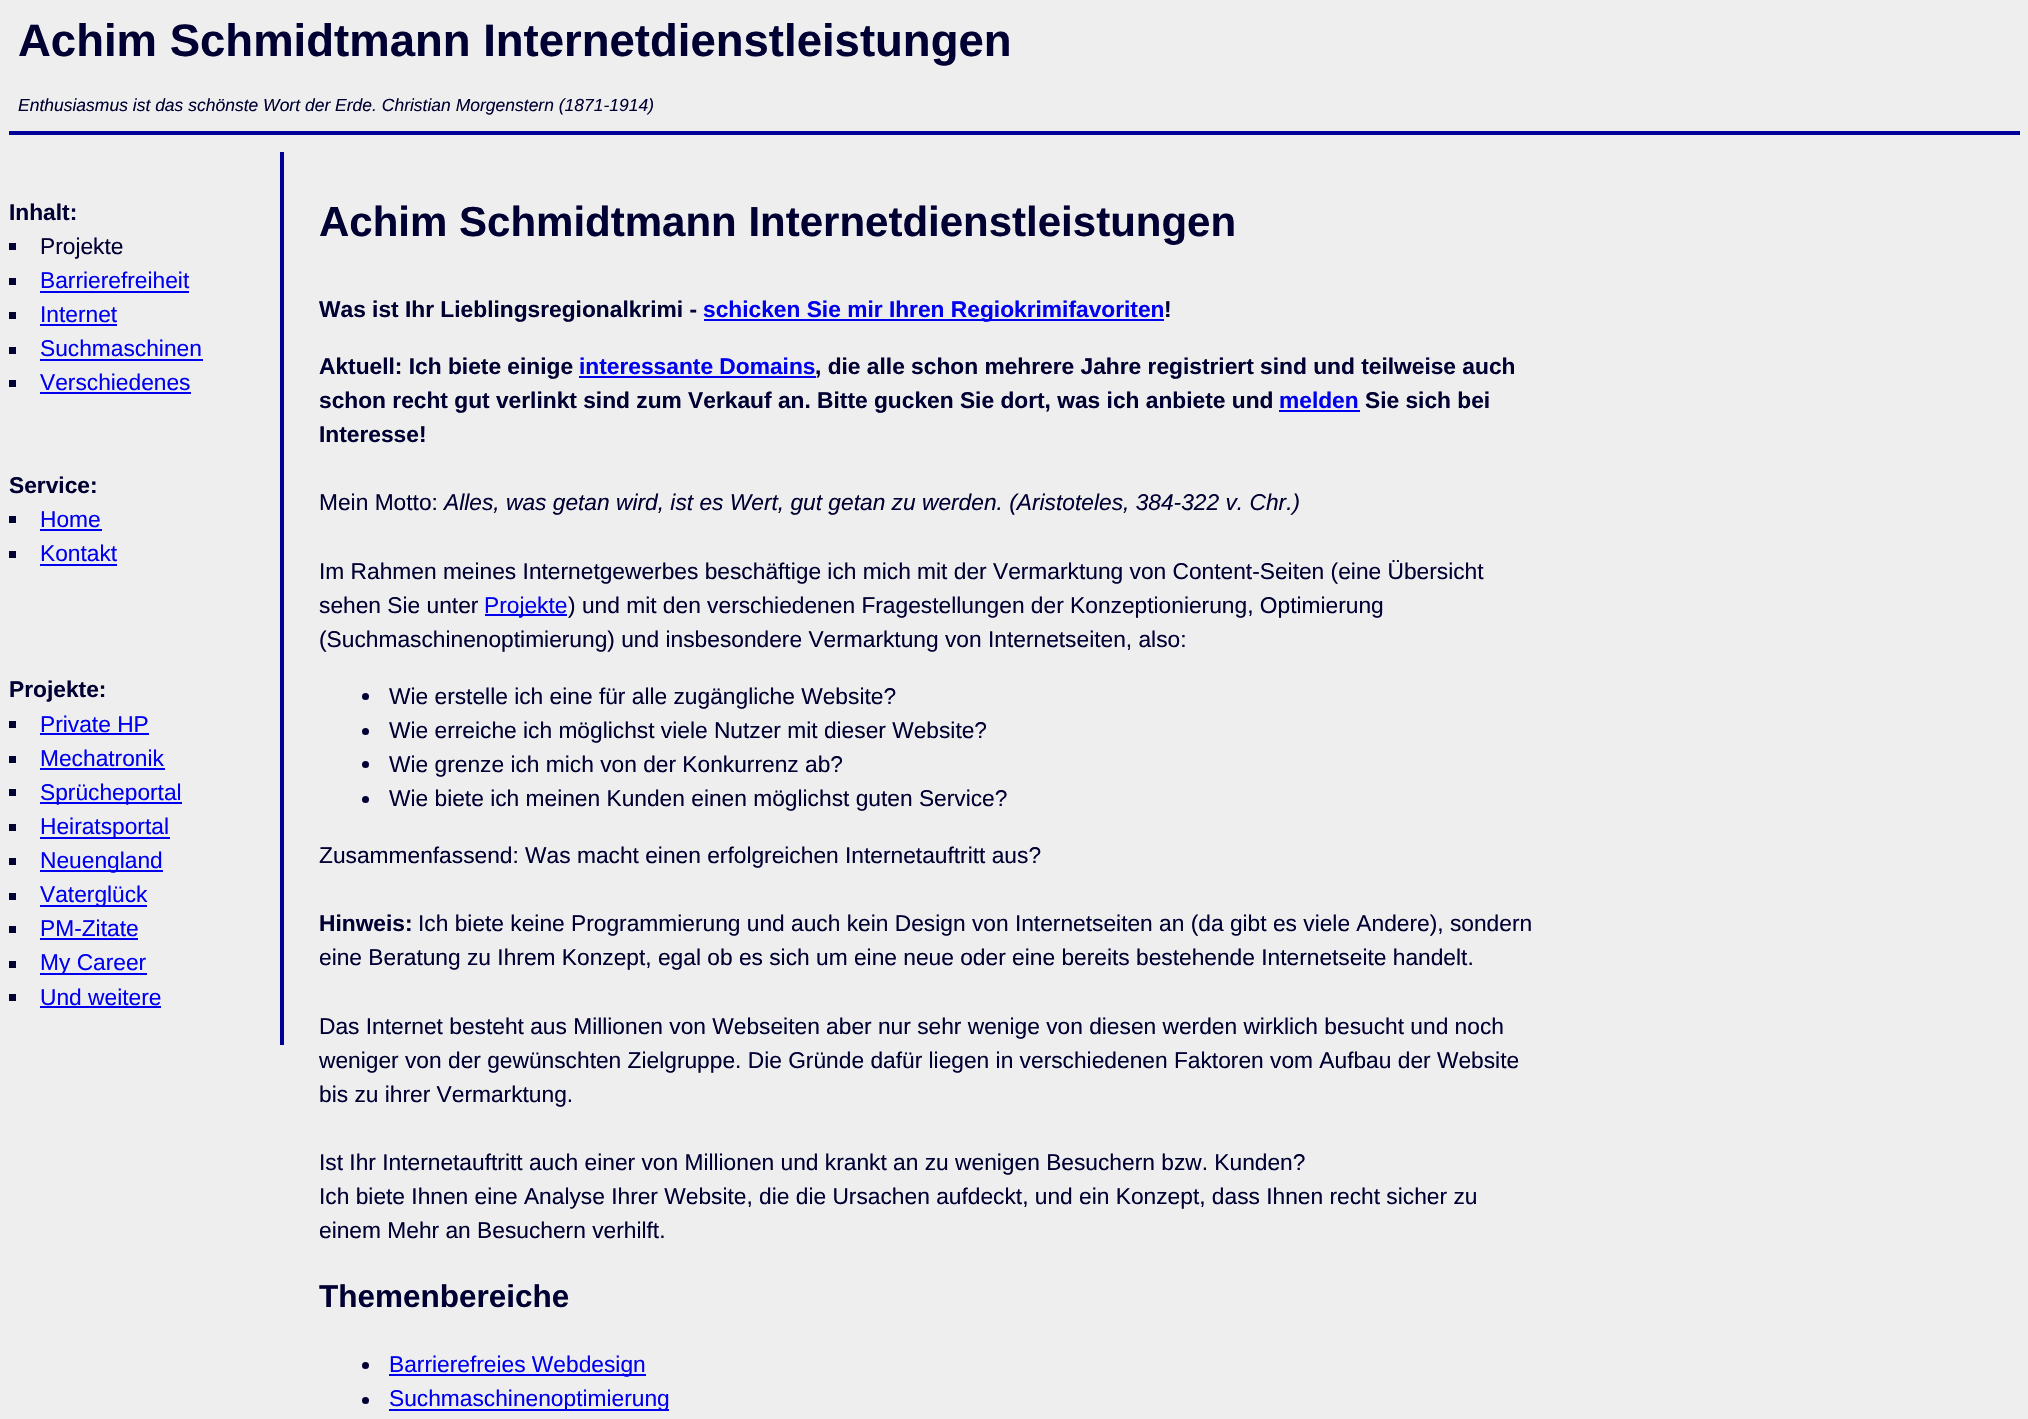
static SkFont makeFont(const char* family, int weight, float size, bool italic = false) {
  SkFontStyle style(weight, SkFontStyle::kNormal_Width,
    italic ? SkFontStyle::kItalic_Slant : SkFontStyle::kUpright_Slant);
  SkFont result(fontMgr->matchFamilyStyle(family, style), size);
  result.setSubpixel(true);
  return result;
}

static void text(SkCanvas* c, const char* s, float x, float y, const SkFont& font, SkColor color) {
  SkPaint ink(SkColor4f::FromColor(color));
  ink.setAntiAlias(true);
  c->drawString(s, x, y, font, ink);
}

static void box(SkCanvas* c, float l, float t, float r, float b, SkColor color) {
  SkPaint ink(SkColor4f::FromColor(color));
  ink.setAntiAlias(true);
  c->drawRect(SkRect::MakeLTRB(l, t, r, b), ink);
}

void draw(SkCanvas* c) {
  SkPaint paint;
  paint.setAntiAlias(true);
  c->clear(0xffeeeeee);
  box(c, 9, 131, 2020, 135, 0xff000099);
  SkFont face1 = makeFont("Liberation Sans", 700, 45.5f);
  text(c, "Achim Schmidtmann Internetdienstleistungen", 18, 56, face1, 0xff000033);
  SkFont face2 = makeFont("Liberation Sans", 400, 17.5f, true);
  text(c, "Enthusiasmus ist das schönste Wort der Erde. Christian Morgenstern (1871-1914)", 18, 111, face2, 0xff000033);
  box(c, 280, 152, 284, 1045, 0xff000099);
  SkFont face3 = makeFont("Liberation Sans", 700, 22.75f);
  text(c, "Inhalt:", 9, 220, face3, 0xff000033);
  box(c, 9, 243, 16, 250, 0xff000033);
  SkFont face4 = makeFont("Liberation Sans", 400, 22.75f);
  text(c, "Projekte", 40, 254, face4, 0xff000033);
  box(c, 9, 278, 16, 285, 0xff000033);
  text(c, "Barrierefreiheit", 40, 288, face4, 0xff0000ee);
  box(c, 40, 291, 189, 293, 0xff0000ee);
  box(c, 9, 312, 16, 319, 0xff000033);
  text(c, "Internet", 40, 322, face4, 0xff0000ee);
  box(c, 40, 324, 117, 326, 0xff0000ee);
  box(c, 9, 347, 16, 354, 0xff000033);
  text(c, "Suchmaschinen", 40, 356, face4, 0xff0000ee);
  box(c, 40, 359, 203, 361, 0xff0000ee);
  box(c, 9, 380, 16, 387, 0xff000033);
  text(c, "Verschiedenes", 40, 390, face4, 0xff0000ee);
  box(c, 40, 392, 191, 394, 0xff0000ee);
  text(c, "Service:", 9, 493, face3, 0xff000033);
  box(c, 9, 516, 16, 523, 0xff000033);
  text(c, "Home", 40, 527, face4, 0xff0000ee);
  box(c, 40, 529, 102, 531, 0xff0000ee);
  box(c, 9, 551, 16, 558, 0xff000033);
  text(c, "Kontakt", 40, 561, face4, 0xff0000ee);
  box(c, 40, 564, 117, 566, 0xff0000ee);
  text(c, "Projekte:", 9, 697, face3, 0xff000033);
  box(c, 9, 721, 16, 728, 0xff000033);
  text(c, "Private HP", 40, 732, face4, 0xff0000ee);
  box(c, 40, 733, 149, 735, 0xff0000ee);
  box(c, 9, 756, 16, 763, 0xff000033);
  text(c, "Mechatronik", 40, 766, face4, 0xff0000ee);
  box(c, 40, 768, 165, 770, 0xff0000ee);
  box(c, 9, 789, 16, 796, 0xff000033);
  box(c, 40, 802, 182, 804, 0xff0000ee);
  text(c, "Sprücheportal", 40, 800, face4, 0xff0000ee);
  box(c, 9, 824, 16, 831, 0xff000033);
  box(c, 40, 837, 170, 839, 0xff0000ee);
  text(c, "Heiratsportal", 40, 834, face4, 0xff0000ee);
  box(c, 9, 858, 16, 865, 0xff000033);
  box(c, 40, 870, 163, 872, 0xff0000ee);
  text(c, "Neuengland", 40, 868, face4, 0xff0000ee);
  box(c, 9, 893, 16, 900, 0xff000033);
  box(c, 40, 905, 147, 907, 0xff0000ee);
  text(c, "Vaterglück", 40, 902, face4, 0xff0000ee);
  box(c, 9, 926, 16, 933, 0xff000033);
  text(c, "PM-Zitate", 40, 936, face4, 0xff0000ee);
  box(c, 40, 938, 138, 940, 0xff0000ee);
  box(c, 9, 961, 16, 968, 0xff000033);
  box(c, 40, 973, 147, 975, 0xff0000ee);
  text(c, "My Career", 40, 970, face4, 0xff0000ee);
  box(c, 9, 994, 16, 1001, 0xff000033);
  text(c, "Und weitere", 40, 1005, face4, 0xff0000ee);
  box(c, 40, 1006, 161, 1008, 0xff0000ee);
  SkFont face5 = makeFont("Liberation Sans", 700, 42);
  text(c, "Achim Schmidtmann Internetdienstleistungen", 319, 236, face5, 0xff000033);
  text(c, "Was ist Ihr Lieblingsregionalkrimi -", 319, 317, face3, 0xff000033);
  box(c, 704, 319, 1164, 321, 0xff0000ee);
  text(c, "schicken Sie mir Ihren Regiokrimifavoriten", 703, 317, face3, 0xff0000ee);
  text(c, "!", 1164, 317, face3, 0xff000033);
  text(c, "Aktuell: Ich biete einige", 319, 374, face3, 0xff000033);
  text(c, "interessante Domains", 579, 374, face3, 0xff0000ee);
  text(c, ", die alle schon mehrere Jahre registriert sind und teilweise auch", 815, 374, face3, 0xff000033);
  box(c, 579, 376, 816, 378, 0xff0000ee);
  text(c, "schon recht gut verlinkt sind zum Verkauf an. Bitte gucken Sie dort, was ich anbiete und", 319, 408, face3, 0xff000033);
  text(c, "melden", 1279, 408, face3, 0xff0000ee);
  box(c, 1279, 410, 1360, 412, 0xff0000ee);
  text(c, "Sie sich bei", 1365, 408, face3, 0xff000033);
  text(c, "Interesse!", 319, 442, face3, 0xff000033);
  text(c, "Mein Motto:", 319, 510, face4, 0xff000033);
  SkFont face6 = makeFont("Liberation Sans", 400, 22.75f, true);
  text(c, "Alles, was getan wird, ist es Wert, gut getan zu werden. (Aristoteles, 384-322 v. Chr.)", 444, 510, face6, 0xff000033);
  text(c, "Im Rahmen meines Internetgewerbes beschäftige ich mich mit der Vermarktung von Content-Seiten (eine Übersicht", 319, 579, face4, 0xff000033);
  text(c, "sehen Sie unter", 319, 613, face4, 0xff000033);
  box(c, 485, 614, 567, 616, 0xff0000ee);
  text(c, "Projekte", 484, 613, face4, 0xff0000ee);
  text(c, ") und mit den verschiedenen Fragestellungen der Konzeptionierung, Optimierung", 568, 613, face4, 0xff000033);
  text(c, "(Suchmaschinenoptimierung) und insbesondere Vermarktung von Internetseiten, also:", 319, 647, face4, 0xff000033);
  paint.setColor(0xff000033);
  c->drawCircle(365.5f, 696.5f, 3.5f, paint);
  text(c, "Wie erstelle ich eine für alle zugängliche Website?", 389, 704, face4, 0xff000033);
  c->drawCircle(365.5f, 731.5f, 3.5f, paint);
  text(c, "Wie erreiche ich möglichst viele Nutzer mit dieser Website?", 389, 738, face4, 0xff000033);
  c->drawCircle(365.5f, 764.5f, 3.5f, paint);
  text(c, "Wie grenze ich mich von der Konkurrenz ab?", 389, 772, face4, 0xff000033);
  c->drawCircle(365.5f, 799.5f, 3.5f, paint);
  text(c, "Wie biete ich meinen Kunden einen möglichst guten Service?", 389, 806, face4, 0xff000033);
  text(c, "Zusammenfassend: Was macht einen erfolgreichen Internetauftritt aus?", 319, 863, face4, 0xff000033);
  text(c, "Hinweis:", 319, 931, face3, 0xff000033);
  text(c, "Ich biete keine Programmierung und auch kein Design von Internetseiten an (da gibt es viele Andere), sondern", 418, 931, face4, 0xff000033);
  text(c, "eine Beratung zu Ihrem Konzept, egal ob es sich um eine neue oder eine bereits bestehende Internetseite handelt.", 319, 965, face4, 0xff000033);
  text(c, "Das Internet besteht aus Millionen von Webseiten aber nur sehr wenige von diesen werden wirklich besucht und noch", 319, 1034, face4, 0xff000033);
  text(c, "weniger von der gewünschten Zielgruppe. Die Gründe dafür liegen in verschiedenen Faktoren vom Aufbau der Website", 319, 1068, face4, 0xff000033);
  text(c, "bis zu ihrer Vermarktung.", 319, 1102, face4, 0xff000033);
  text(c, "Ist Ihr Internetauftritt auch einer von Millionen und krankt an zu wenigen Besuchern bzw. Kunden?", 319, 1170, face4, 0xff000033);
  text(c, "Ich biete Ihnen eine Analyse Ihrer Website, die die Ursachen aufdeckt, und ein Konzept, dass Ihnen recht sicher zu", 319, 1204, face4, 0xff000033);
  text(c, "einem Mehr an Besuchern verhilft.", 319, 1238, face4, 0xff000033);
  SkFont face7 = makeFont("Liberation Sans", 700, 31.5f);
  text(c, "Themenbereiche", 319, 1307, face7, 0xff000033);
  c->drawCircle(365.5f, 1365.5f, 3.5f, paint);
  box(c, 389, 1374, 646, 1376, 0xff0000ee);
  text(c, "Barrierefreies Webdesign", 389, 1372, face4, 0xff0000ee);
  c->drawCircle(365.5f, 1400.5f, 3.5f, paint);
  box(c, 389, 1409, 669, 1411, 0xff0000ee);
  text(c, "Suchmaschinenoptimierung", 389, 1406, face4, 0xff0000ee);
}
